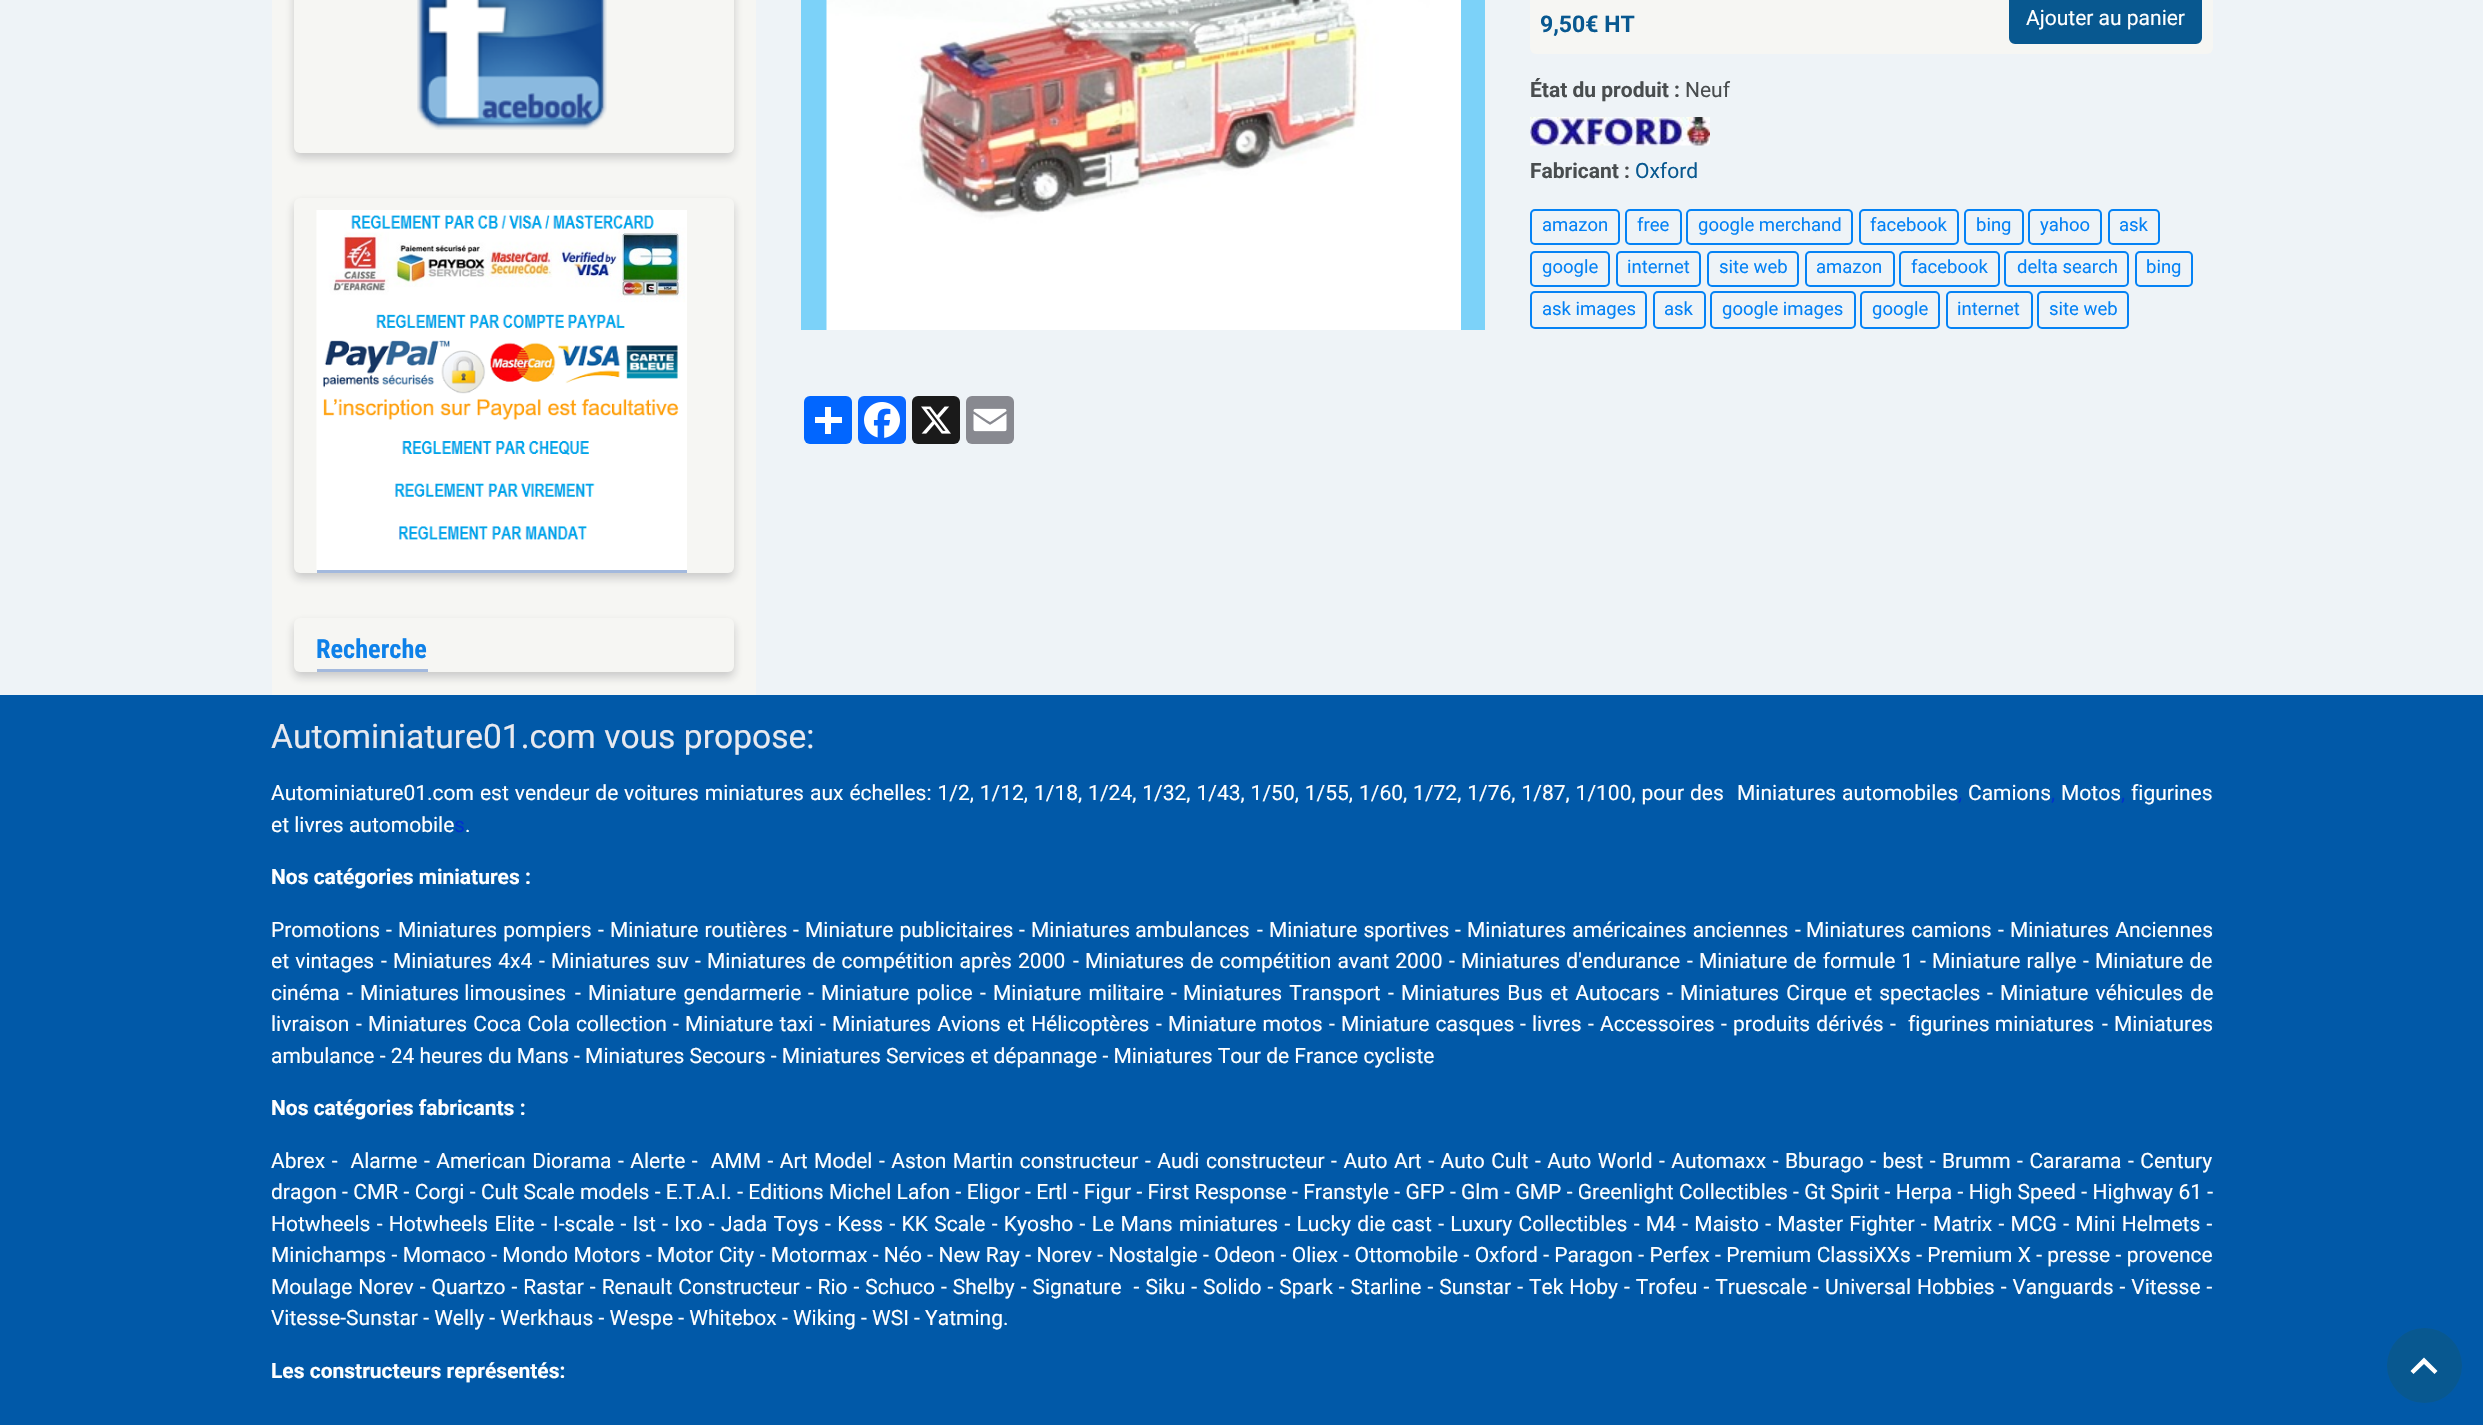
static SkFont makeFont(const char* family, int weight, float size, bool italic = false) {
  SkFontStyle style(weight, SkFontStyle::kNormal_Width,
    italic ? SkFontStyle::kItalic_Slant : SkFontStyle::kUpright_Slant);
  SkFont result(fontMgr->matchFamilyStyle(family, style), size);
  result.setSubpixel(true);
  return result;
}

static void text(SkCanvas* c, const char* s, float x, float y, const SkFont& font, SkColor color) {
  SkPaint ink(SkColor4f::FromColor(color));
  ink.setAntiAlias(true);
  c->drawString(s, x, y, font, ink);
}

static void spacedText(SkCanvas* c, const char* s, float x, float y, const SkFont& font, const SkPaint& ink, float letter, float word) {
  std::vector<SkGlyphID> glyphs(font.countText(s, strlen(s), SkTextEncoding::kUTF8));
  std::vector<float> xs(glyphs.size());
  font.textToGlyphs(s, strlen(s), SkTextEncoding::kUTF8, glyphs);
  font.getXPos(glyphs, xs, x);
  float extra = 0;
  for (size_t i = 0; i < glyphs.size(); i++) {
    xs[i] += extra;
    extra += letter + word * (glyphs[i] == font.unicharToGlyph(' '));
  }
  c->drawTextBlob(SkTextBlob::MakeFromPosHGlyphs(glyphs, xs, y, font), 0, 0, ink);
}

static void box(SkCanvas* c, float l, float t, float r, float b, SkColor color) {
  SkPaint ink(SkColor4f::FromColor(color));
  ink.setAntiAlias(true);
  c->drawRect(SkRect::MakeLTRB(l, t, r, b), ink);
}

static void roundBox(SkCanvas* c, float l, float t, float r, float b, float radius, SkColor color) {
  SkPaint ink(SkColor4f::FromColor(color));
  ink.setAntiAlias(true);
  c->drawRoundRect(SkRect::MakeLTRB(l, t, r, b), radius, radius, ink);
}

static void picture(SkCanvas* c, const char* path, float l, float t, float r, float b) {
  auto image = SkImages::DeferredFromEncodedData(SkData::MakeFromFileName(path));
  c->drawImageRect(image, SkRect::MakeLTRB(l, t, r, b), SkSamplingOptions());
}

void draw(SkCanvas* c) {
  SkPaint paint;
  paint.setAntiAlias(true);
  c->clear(0xffeef3f7);
  box(c, 801, 0, 1485, 330, 0xff7cd2f9);
  picture(c, "img_01.png", 826, 0, 1461, 330);
  roundBox(c, 1530, -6, 2213, 54, 6, 0xfff6f6f3);
  SkFont face1 = makeFont("Roboto", 700, 23);
  text(c, "9,50€ HT", 1540, 32, face1, 0xff085890);
  paint.setColor(0xff085890);
  c->drawRoundRect(SkRect::MakeLTRB(2010, -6, 2201, 43), 5, 5, paint);
  paint.setStyle(SkPaint::kStroke_Style);
  paint.setStrokeWidth(2);
  c->drawRoundRect(SkRect::MakeLTRB(2010, -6, 2201, 43), 5, 5, paint);
  SkFont face2 = makeFont("Roboto", 400, 21);
  text(c, "Ajouter au panier", 2026, 25, face2, 0xffffffff);
  SkFont face3 = makeFont("Roboto", 700, 21);
  text(c, "État du produit :", 1530, 97, face3, 0xff494d4f);
  text(c, "Neuf", 1685, 97, face2, 0xff494d4f);
  picture(c, "img_02.png", 1530, 117, 1710, 146);
  text(c, "Fabricant :", 1530, 178, face3, 0xff494d4f);
  text(c, "Oxford", 1635, 178, face2, 0xff085890);
  paint.setColor(0xff0482f5);
  c->drawRoundRect(SkRect::MakeLTRB(1531, 210, 1619, 244), 4, 4, paint);
  SkFont face4 = makeFont("Roboto", 400, 18.5f);
  text(c, "amazon", 1542, 231, face4, 0xff0482f5);
  c->drawRoundRect(SkRect::MakeLTRB(1626, 210, 1681, 244), 4, 4, paint);
  text(c, "free", 1637, 231, face4, 0xff0482f5);
  c->drawRoundRect(SkRect::MakeLTRB(1687, 210, 1852, 244), 4, 4, paint);
  text(c, "google merchand", 1698, 231, face4, 0xff0482f5);
  c->drawRoundRect(SkRect::MakeLTRB(1860, 210, 1958, 244), 4, 4, paint);
  text(c, "facebook", 1870, 231, face4, 0xff0482f5);
  c->drawRoundRect(SkRect::MakeLTRB(1965, 210, 2023, 244), 4, 4, paint);
  text(c, "bing", 1976, 231, face4, 0xff0482f5);
  c->drawRoundRect(SkRect::MakeLTRB(2029, 210, 2101, 244), 4, 4, paint);
  text(c, "yahoo", 2040, 231, face4, 0xff0482f5);
  c->drawRoundRect(SkRect::MakeLTRB(2109, 210, 2159, 244), 4, 4, paint);
  text(c, "ask", 2119, 231, face4, 0xff0482f5);
  c->drawRoundRect(SkRect::MakeLTRB(1531, 252, 1609, 286), 4, 4, paint);
  text(c, "google", 1542, 273, face4, 0xff0482f5);
  c->drawRoundRect(SkRect::MakeLTRB(1617, 252, 1700, 286), 4, 4, paint);
  text(c, "internet", 1627, 273, face4, 0xff0482f5);
  c->drawRoundRect(SkRect::MakeLTRB(1708, 252, 1798, 286), 4, 4, paint);
  text(c, "site web", 1719, 273, face4, 0xff0482f5);
  c->drawRoundRect(SkRect::MakeLTRB(1806, 252, 1894, 286), 4, 4, paint);
  text(c, "amazon", 1816, 273, face4, 0xff0482f5);
  c->drawRoundRect(SkRect::MakeLTRB(1900, 252, 1999, 286), 4, 4, paint);
  text(c, "facebook", 1911, 273, face4, 0xff0482f5);
  c->drawRoundRect(SkRect::MakeLTRB(2005, 252, 2128, 286), 4, 4, paint);
  text(c, "delta search", 2017, 273, face4, 0xff0482f5);
  c->drawRoundRect(SkRect::MakeLTRB(2136, 252, 2192, 286), 4, 4, paint);
  text(c, "bing", 2146, 273, face4, 0xff0482f5);
  c->drawRoundRect(SkRect::MakeLTRB(1531, 292, 1646, 328), 4, 4, paint);
  text(c, "ask images", 1542, 315, face4, 0xff0482f5);
  c->drawRoundRect(SkRect::MakeLTRB(1654, 292, 1705, 328), 4, 4, paint);
  text(c, "ask", 1664, 315, face4, 0xff0482f5);
  c->drawRoundRect(SkRect::MakeLTRB(1711, 292, 1855, 328), 4, 4, paint);
  text(c, "google images", 1722, 315, face4, 0xff0482f5);
  c->drawRoundRect(SkRect::MakeLTRB(1861, 292, 1939, 328), 4, 4, paint);
  text(c, "google", 1872, 315, face4, 0xff0482f5);
  c->drawRoundRect(SkRect::MakeLTRB(1947, 292, 2032, 328), 4, 4, paint);
  text(c, "internet", 1957, 315, face4, 0xff0482f5);
  c->drawRoundRect(SkRect::MakeLTRB(2038, 292, 2128, 328), 4, 4, paint);
  text(c, "site web", 2049, 315, face4, 0xff0482f5);
  roundBox(c, 804, 396, 852, 444, 6, 0xff0166ff);
  box(c, 825, 407, 831, 434, 0xffffffff);
  box(c, 815, 417, 842, 423, 0xffffffff);
  roundBox(c, 858, 396, 906, 444, 6, 0xff0866ff);
  picture(c, "img_03.png", 864, 402, 900, 438);
  roundBox(c, 912, 396, 960, 444, 6, 0xff1a1a1a);
  picture(c, "img_04.png", 921, 406, 951, 434);
  roundBox(c, 966, 396, 1014, 444, 6, 0xff888990);
  picture(c, "img_05.png", 973, 408, 1007, 432);
  box(c, 272, 0, 756, 695, 0xfff6f6f3);
  paint.setStyle(SkPaint::kFill_Style);
  paint.setColor(0x3314141c);
  paint.setMaskFilter(SkMaskFilter::MakeBlur(kNormal_SkBlurStyle, 5));
  c->drawRoundRect(SkRect::MakeLTRB(294, -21, 734, 158), 6, 6, paint);
  paint.setMaskFilter(nullptr);
  roundBox(c, 294, -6, 734, 153, 6, 0xfff6f6f3);
  picture(c, "img_06.png", 417, 0, 607, 130);
  paint.setMaskFilter(SkMaskFilter::MakeBlur(kNormal_SkBlurStyle, 5));
  c->drawRoundRect(SkRect::MakeLTRB(294, 203, 734, 578), 6, 6, paint);
  paint.setMaskFilter(nullptr);
  roundBox(c, 294, 198, 734, 573, 6, 0xfff6f6f3);
  box(c, 317, 570, 687, 573, 0xffa3b9dd);
  picture(c, "img_07.png", 316, 210, 687, 570);
  paint.setMaskFilter(SkMaskFilter::MakeBlur(kNormal_SkBlurStyle, 5));
  c->drawRoundRect(SkRect::MakeLTRB(294, 623, 734, 677), 6, 6, paint);
  paint.setMaskFilter(nullptr);
  roundBox(c, 294, 618, 734, 672, 6, 0xfff6f6f3);
  box(c, 317, 669, 428, 672, 0xffa3b9dd);
  SkFont face5 = makeFont("Roboto Condensed", 700, 26.25f);
  text(c, "Recherche", 316, 658, face5, 0xff0e81e9);
  box(c, 0, 695, 2483, 1425, 0xff0159a8);
  SkFont face6 = makeFont("Roboto", 400, 33.6f);
  text(c, "Autominiature01.com vous propose:", 271, 748, face6, 0xffe8e9ef);
  paint.setColor(0xffffffff);
  spacedText(c, "Autominiature01.com est vendeur de", 271, 800, face2, paint, 0, 0.75f);
  spacedText(c, "voitures miniatures", 624, 800, face2, paint, 0, 0.75f);
  spacedText(c, "aux échelles: 1/2, 1/12, 1/18, 1/24, 1/32, 1/43, 1/50, 1/55, 1/60, 1/72, 1/76, 1/87, 1/100, pour des", 810, 800, face2, paint, 0, 0.75f);
  spacedText(c, "Miniatures automobiles", 1737, 800, face2, paint, 0, 0.75f);
  text(c, ",", 1958, 800, face2, 0xff0033cc);
  text(c, "Camions", 1968, 800, face2, 0xffffffff);
  text(c, ",", 2051, 800, face2, 0xff0033cc);
  text(c, "Motos", 2061, 800, face2, 0xffffffff);
  text(c, ",", 2121, 800, face2, 0xff0033cc);
  text(c, "figurines", 2131, 800, face2, 0xffffffff);
  text(c, "et livres automobile", 271, 832, face2, 0xffffffff);
  text(c, "s", 454, 832, face2, 0xff0033cc);
  text(c, ".", 465, 832, face2, 0xffffffff);
  text(c, "Nos catégories miniatures :", 271, 884, face3, 0xffffffff);
  text(c, "Promotions", 271, 937, face2, 0xffffffff);
  text(c, "-", 386, 937, face2, 0xffffffff);
  spacedText(c, "Miniatures pompiers", 398, 937, face2, paint, 0, 1);
  text(c, "-", 598, 937, face2, 0xffffffff);
  spacedText(c, "Miniature routières", 610, 937, face2, paint, 0, 1);
  text(c, "-", 793, 937, face2, 0xffffffff);
  spacedText(c, "Miniature publicitaires", 805, 937, face2, paint, 0, 1);
  text(c, "-", 1019, 937, face2, 0xffffffff);
  text(c, "Miniatures ambulances", 1031, 937, face2, 0xffffffff);
  text(c, "-", 1257, 937, face2, 0xffffffff);
  spacedText(c, "Miniature sportives", 1269, 937, face2, paint, 0, 1);
  text(c, "-", 1455, 937, face2, 0xffffffff);
  spacedText(c, "Miniatures américaines anciennes", 1467, 937, face2, paint, 0, 1);
  text(c, "-", 1795, 937, face2, 0xffffffff);
  spacedText(c, "Miniatures camions", 1806, 937, face2, paint, 0, 1);
  text(c, "-", 1998, 937, face2, 0xffffffff);
  spacedText(c, "Miniatures Anciennes", 2010, 937, face2, paint, 0, 1);
  spacedText(c, "et vintages", 271, 968, face2, paint, 0, 1);
  text(c, "-", 381, 968, face2, 0xffffffff);
  spacedText(c, "Miniatures 4x4", 393, 968, face2, paint, 0, 1);
  text(c, "-", 539, 968, face2, 0xffffffff);
  spacedText(c, "Miniatures suv", 551, 968, face2, paint, 0, 1);
  text(c, "-", 695, 968, face2, 0xffffffff);
  spacedText(c, "Miniatures de compétition après 2000", 707, 968, face2, paint, 0, 1);
  text(c, "-", 1073, 968, face2, 0xffffffff);
  spacedText(c, "Miniatures de compétition avant 2000", 1085, 968, face2, paint, 0, 1);
  text(c, "-", 1449, 968, face2, 0xffffffff);
  spacedText(c, "Miniatures d'endurance", 1461, 968, face2, paint, 0, 1);
  text(c, "-", 1687, 968, face2, 0xffffffff);
  spacedText(c, "Miniature de formule 1", 1699, 968, face2, paint, 0, 1);
  text(c, "-", 1920, 968, face2, 0xffffffff);
  spacedText(c, "Miniature rallye", 1932, 968, face2, paint, 0, 1);
  text(c, "-", 2083, 968, face2, 0xffffffff);
  spacedText(c, "Miniature de", 2095, 968, face2, paint, 0, 1);
  text(c, "cinéma", 271, 1000, face2, 0xffffffff);
  text(c, "-", 347, 1000, face2, 0xffffffff);
  text(c, "Miniatures limousines", 360, 1000, face2, 0xffffffff);
  text(c, "-", 575, 1000, face2, 0xffffffff);
  spacedText(c, "Miniature gendarmerie", 588, 1000, face2, paint, 0, 2);
  text(c, "-", 808, 1000, face2, 0xffffffff);
  spacedText(c, "Miniature police", 821, 1000, face2, paint, 0, 2);
  text(c, "-", 980, 1000, face2, 0xffffffff);
  spacedText(c, "Miniature militaire", 993, 1000, face2, paint, 0, 2);
  text(c, "-", 1171, 1000, face2, 0xffffffff);
  spacedText(c, "Miniatures Transport", 1183, 1000, face2, paint, 0, 2);
  text(c, "-", 1388, 1000, face2, 0xffffffff);
  spacedText(c, "Miniatures Bus et Autocars", 1401, 1000, face2, paint, 0, 2);
  text(c, "-", 1667, 1000, face2, 0xffffffff);
  spacedText(c, "Miniatures Cirque et spectacles", 1680, 1000, face2, paint, 0, 2);
  text(c, "-", 1987, 1000, face2, 0xffffffff);
  spacedText(c, "Miniature véhicules de", 2000, 1000, face2, paint, 0, 2);
  text(c, "livraison", 271, 1031, face2, 0xffffffff);
  text(c, "-", 356, 1031, face2, 0xffffffff);
  spacedText(c, "Miniatures Coca Cola collection", 368, 1031, face2, paint, 0, 1);
  text(c, "-", 673, 1031, face2, 0xffffffff);
  spacedText(c, "Miniature taxi", 685, 1031, face2, paint, 0, 1);
  text(c, "-", 820, 1031, face2, 0xffffffff);
  spacedText(c, "Miniatures Avions et Hélicoptères", 832, 1031, face2, paint, 0, 1);
  text(c, "-", 1156, 1031, face2, 0xffffffff);
  spacedText(c, "Miniature motos", 1168, 1031, face2, paint, 0, 1);
  text(c, "-", 1329, 1031, face2, 0xffffffff);
  spacedText(c, "Miniature casques", 1341, 1031, face2, paint, 0, 1);
  text(c, "-", 1520, 1031, face2, 0xffffffff);
  text(c, "livres", 1532, 1031, face2, 0xffffffff);
  text(c, "-", 1588, 1031, face2, 0xffffffff);
  text(c, "Accessoires", 1600, 1031, face2, 0xffffffff);
  text(c, "-", 1721, 1031, face2, 0xffffffff);
  spacedText(c, "produits dérivés", 1733, 1031, face2, paint, 0, 1);
  text(c, "-", 1890, 1031, face2, 0xffffffff);
  text(c, "figurines miniatures", 1908, 1031, face2, 0xffffffff);
  text(c, "-", 2102, 1031, face2, 0xffffffff);
  text(c, "Miniatures", 2114, 1031, face2, 0xffffffff);
  text(c, "ambulance - 24 heures du Mans - Miniatures Secours - Miniatures Services et dépannage - Miniatures Tour de France cycliste", 271, 1063, face2, 0xffffffff);
  text(c, "Nos catégories fabricants :", 271, 1115, face3, 0xffffffff);
  spacedText(c, "Abrex -  Alarme - American Diorama - Alerte -  AMM - Art Model - Aston Martin constructeur - Audi constructeur - Auto Art - Auto Cult - Auto World - Automaxx - Bburago - best - Brumm - Cararama - Century", 271, 1168, face2, paint, 0, 1.3f);
  spacedText(c, "dragon - CMR - Corgi - Cult Scale models - E.T.A.I. - Editions Michel Lafon - Eligor - Ertl - Figur - First Response - Franstyle - GFP - Glm - GMP - Greenlight Collectibles - Gt Spirit - Herpa - High Speed - Highway 61 -", 271, 1199, face2, paint, 0, 0.15f);
  spacedText(c, "Hotwheels - Hotwheels Elite - I-scale - Ist - Ixo - Jada Toys - Kess - KK Scale - Kyosho - Le Mans miniatures - Lucky die cast - Luxury Collectibles - M4 - Maisto - Master Fighter - Matrix - MCG - Mini Helmets -", 271, 1231, face2, paint, 0, 1.1f);
  spacedText(c, "Minichamps - Momaco - Mondo Motors - Motor City - Motormax - Néo - New Ray - Norev - Nostalgie - Odeon - Oliex - Ottomobile - Oxford - Paragon - Perfex - Premium ClassiXXs - Premium X - presse - provence", 271, 1262, face2, paint, 0, 0.15f);
  spacedText(c, "Moulage Norev - Quartzo - Rastar - Renault Constructeur - Rio - Schuco - Shelby - Signature  - Siku - Solido - Spark - Starline - Sunstar - Tek Hoby - Trofeu - Truescale - Universal Hobbies - Vanguards - Vitesse -", 271, 1294, face2, paint, 0, 0.8f);
  text(c, "Vitesse-Sunstar - Welly - Werkhaus - Wespe - Whitebox - Wiking - WSI - Yatming.", 271, 1325, face2, 0xffffffff);
  text(c, "Les constructeurs représentés:", 271, 1378, face3, 0xffffffff);
  paint.setColor(0xff085890);
  c->drawCircle(2424.5f, 1365.5f, 37.5f, paint);
  paint.setColor(0xffffffff);
  c->drawPath(SkPathBuilder().moveTo(2424, 1357.5f).lineTo(2437.5f, 1371).lineTo(2434.5f, 1374).lineTo(2424, 1364).lineTo(2413.5f, 1374).lineTo(2410.5f, 1371).close().detach(), paint);
}
